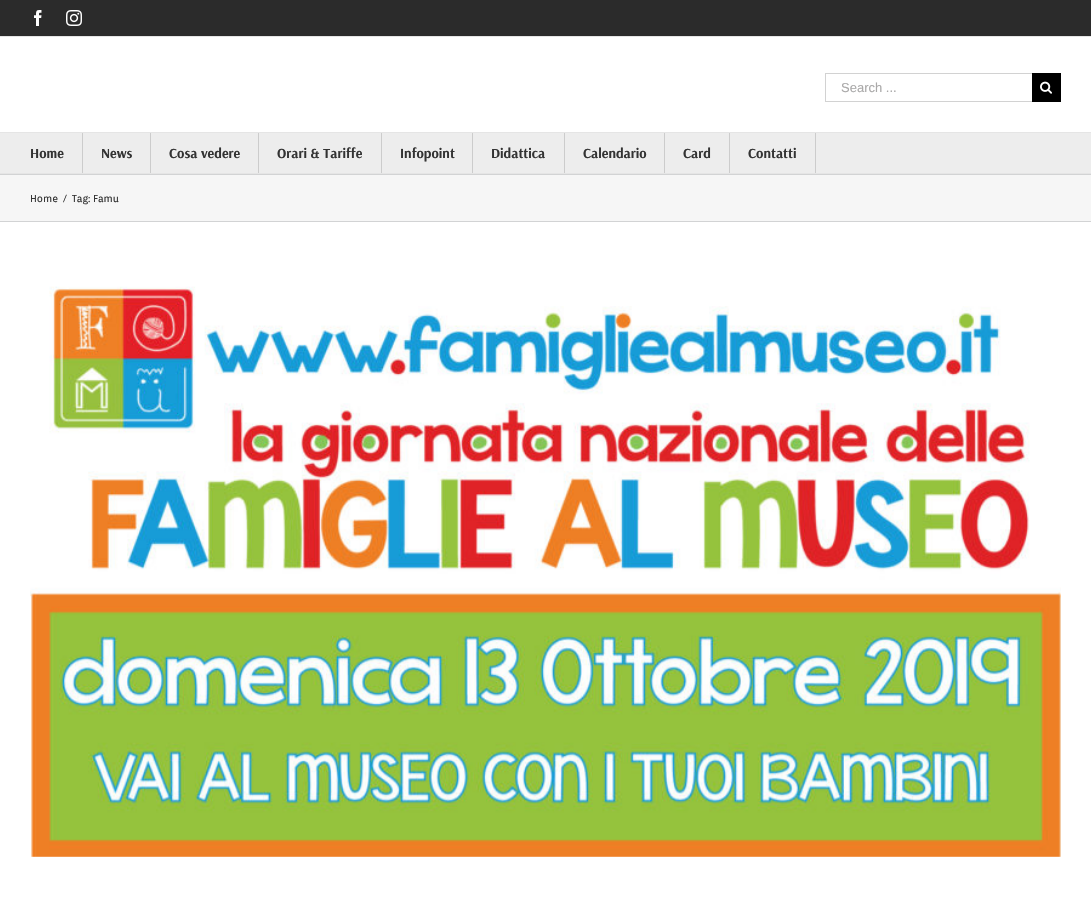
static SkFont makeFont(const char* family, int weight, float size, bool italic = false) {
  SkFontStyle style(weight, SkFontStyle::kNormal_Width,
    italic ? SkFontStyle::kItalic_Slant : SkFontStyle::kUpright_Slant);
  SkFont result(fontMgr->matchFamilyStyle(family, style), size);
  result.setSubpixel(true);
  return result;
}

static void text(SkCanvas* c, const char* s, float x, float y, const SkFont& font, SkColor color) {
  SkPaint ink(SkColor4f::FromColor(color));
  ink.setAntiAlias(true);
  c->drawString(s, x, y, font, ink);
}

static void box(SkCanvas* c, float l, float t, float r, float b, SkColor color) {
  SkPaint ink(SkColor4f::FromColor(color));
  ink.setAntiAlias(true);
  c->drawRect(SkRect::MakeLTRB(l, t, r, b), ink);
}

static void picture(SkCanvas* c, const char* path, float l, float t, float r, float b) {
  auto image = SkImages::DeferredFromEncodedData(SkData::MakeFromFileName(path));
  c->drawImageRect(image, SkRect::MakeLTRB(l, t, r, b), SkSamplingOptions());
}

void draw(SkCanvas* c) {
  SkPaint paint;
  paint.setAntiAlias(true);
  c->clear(0xffffffff);
  box(c, 0, 0, 1091, 36, 0xff2b2b2b);
  box(c, 0, 36, 1091, 37, 0xffe5e5e5);
  picture(c, "img_01.png", 34, 10, 42, 26);
  picture(c, "img_02.png", 66, 10, 82, 26);
  box(c, 0, 132, 1091, 133, 0xffe5e5e5);
  box(c, 825, 73, 1032, 74, 0xffd2d2d2);
  box(c, 825, 101, 1032, 102, 0xffd2d2d2);
  box(c, 825, 73, 826, 102, 0xffd2d2d2);
  SkFont face1 = makeFont("Liberation Sans", 400, 13);
  text(c, "Search ...", 841, 92, face1, 0xffaaa9a9);
  box(c, 1032, 73, 1061, 102, 0xff000000);
  picture(c, "img_03.png", 1040, 81, 1052, 94);
  box(c, 0, 133, 1091, 173, 0xffededed);
  box(c, 0, 173, 1091, 174, 0xffe5e5e5);
  box(c, 82, 133, 83, 173, 0xffcccccc);
  SkFont face2 = makeFont("Arsenal", 700, 14);
  text(c, "Home", 30, 158, face2, 0xff333333);
  box(c, 150, 133, 151, 173, 0xffcccccc);
  text(c, "News", 101, 158, face2, 0xff333333);
  box(c, 258, 133, 259, 173, 0xffcccccc);
  text(c, "Cosa vedere", 169, 158, face2, 0xff333333);
  box(c, 381, 133, 382, 173, 0xffcccccc);
  text(c, "Orari & Tariffe", 277, 158, face2, 0xff333333);
  box(c, 472, 133, 473, 173, 0xffcccccc);
  text(c, "Infopoint", 400, 158, face2, 0xff333333);
  box(c, 564, 133, 565, 173, 0xffcccccc);
  text(c, "Didattica", 491, 158, face2, 0xff333333);
  box(c, 664, 133, 665, 173, 0xffcccccc);
  text(c, "Calendario", 583, 158, face2, 0xff333333);
  box(c, 729, 133, 730, 173, 0xffcccccc);
  text(c, "Card", 683, 158, face2, 0xff333333);
  box(c, 815, 133, 816, 173, 0xffcccccc);
  text(c, "Contatti", 748, 158, face2, 0xff333333);
  box(c, 0, 175, 1091, 221, 0xfff6f6f6);
  box(c, 0, 174, 1091, 175, 0xffd2d3d4);
  box(c, 0, 221, 1091, 222, 0xffd2d3d4);
  SkFont face3 = makeFont("Orienta", 400, 10);
  text(c, "Home", 30, 202, face3, 0xff333333);
  text(c, "/", 63, 202, face3, 0xff333333);
  text(c, "Tag: Famu", 72, 202, face3, 0xff333333);
  picture(c, "img_04.png", 30, 286, 1061, 857);
}
